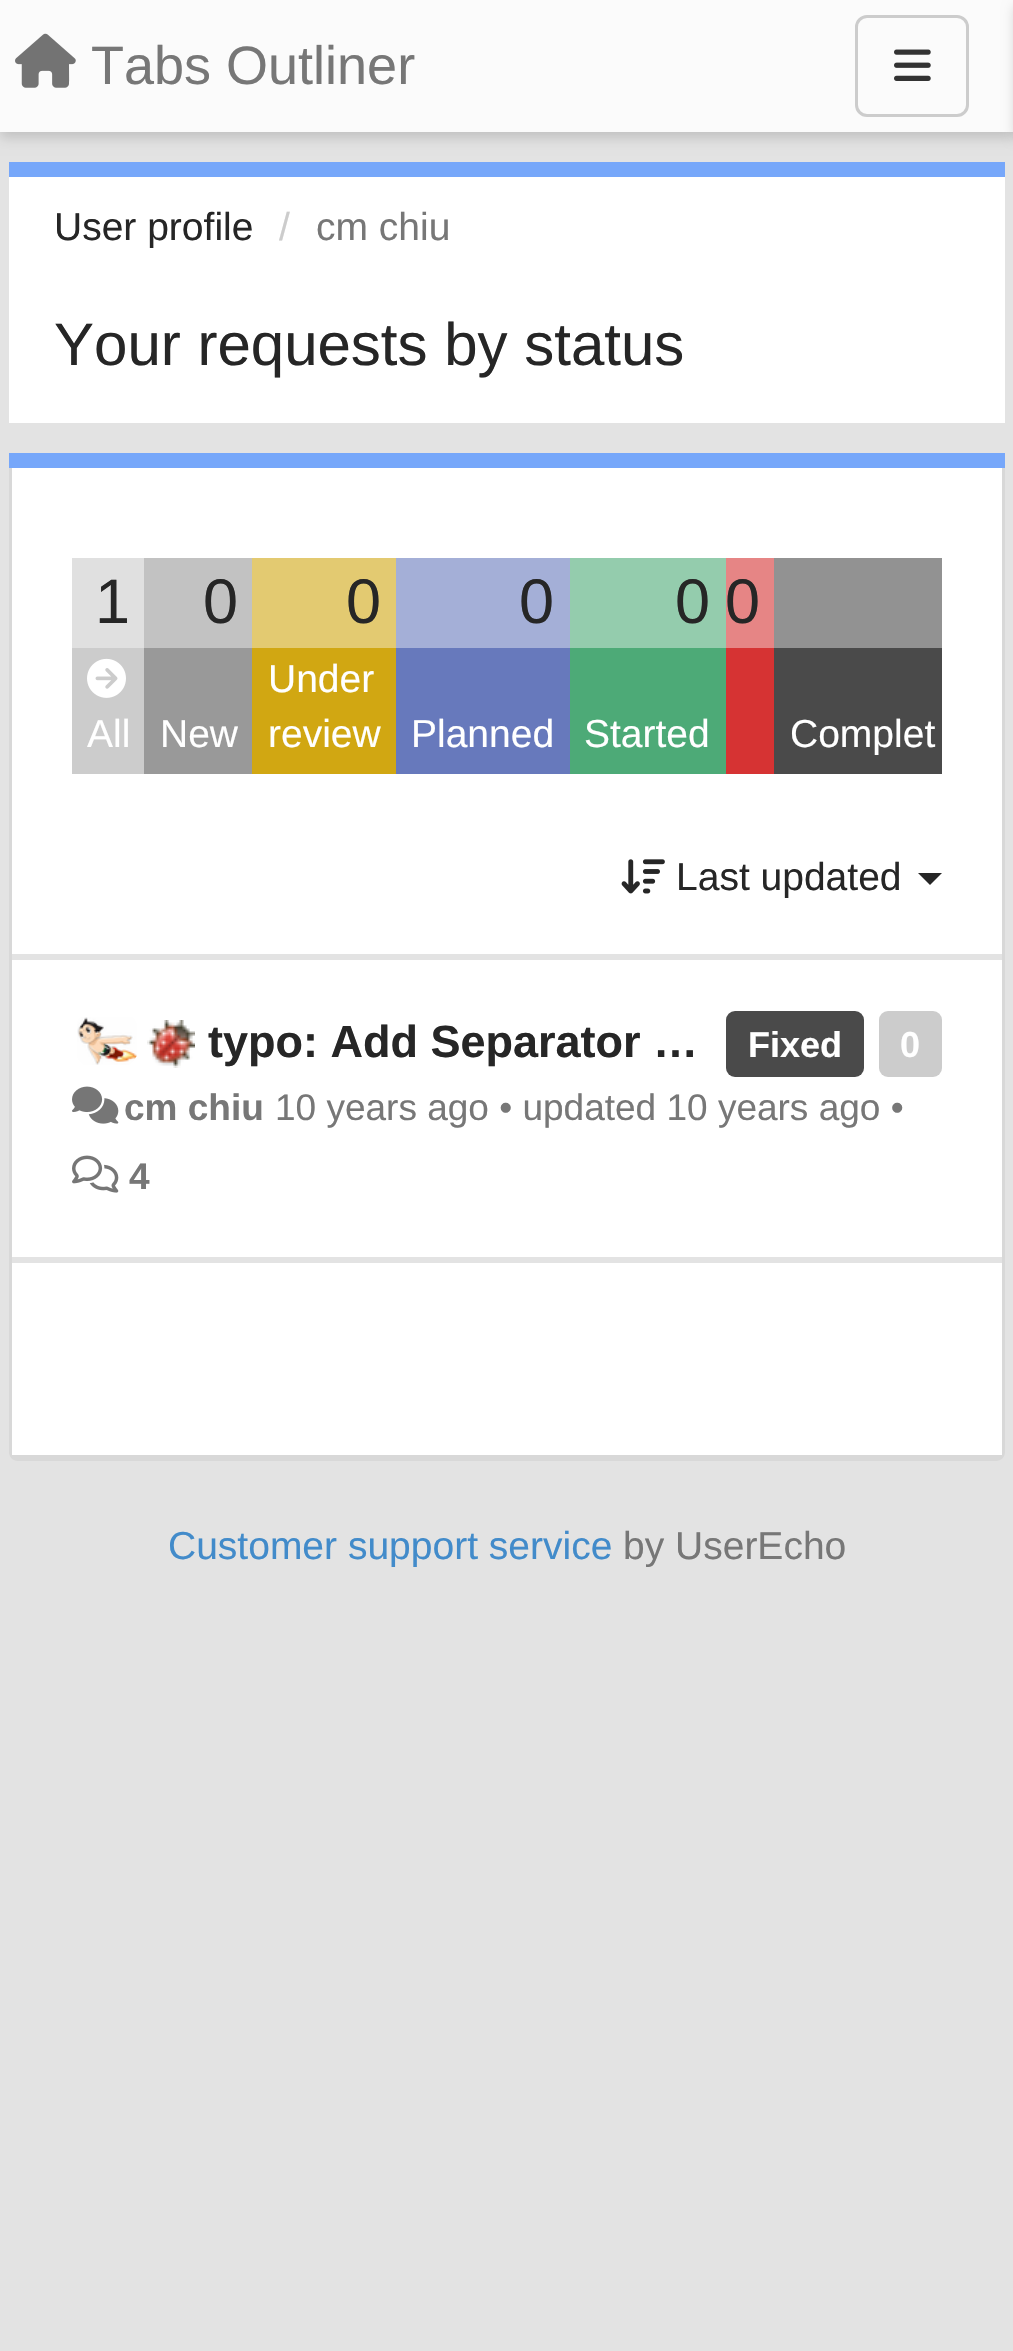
static SkFont makeFont(const char* family, int weight, float size, bool italic = false) {
  SkFontStyle style(weight, SkFontStyle::kNormal_Width,
    italic ? SkFontStyle::kItalic_Slant : SkFontStyle::kUpright_Slant);
  SkFont result(fontMgr->matchFamilyStyle(family, style), size);
  result.setSubpixel(true);
  return result;
}

static void text(SkCanvas* c, const char* s, float x, float y, const SkFont& font, SkColor color) {
  SkPaint ink(SkColor4f::FromColor(color));
  ink.setAntiAlias(true);
  c->drawString(s, x, y, font, ink);
}

static void box(SkCanvas* c, float l, float t, float r, float b, SkColor color) {
  SkPaint ink(SkColor4f::FromColor(color));
  ink.setAntiAlias(true);
  c->drawRect(SkRect::MakeLTRB(l, t, r, b), ink);
}

static void roundBox(SkCanvas* c, float l, float t, float r, float b, float radius, SkColor color) {
  SkPaint ink(SkColor4f::FromColor(color));
  ink.setAntiAlias(true);
  c->drawRoundRect(SkRect::MakeLTRB(l, t, r, b), radius, radius, ink);
}

static void picture(SkCanvas* c, const char* path, float l, float t, float r, float b) {
  auto image = SkImages::DeferredFromEncodedData(SkData::MakeFromFileName(path));
  c->drawImageRect(image, SkRect::MakeLTRB(l, t, r, b), SkSamplingOptions());
}

void draw(SkCanvas* c) {
  SkPaint paint;
  paint.setAntiAlias(true);
  c->clear(0xffe3e3e3);
  paint.setColor(0x26000000);
  paint.setMaskFilter(SkMaskFilter::MakeBlur(kNormal_SkBlurStyle, 6));
  c->drawRect(SkRect::MakeLTRB(0, 6, 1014, 138), paint);
  paint.setMaskFilter(nullptr);
  box(c, 0, 0, 1013, 132, 0xfffbfbfb);
  picture(c, "img_01.png", 15, 33, 76, 88);
  SkFont face1 = makeFont("Liberation Sans", 400, 54);
  text(c, "Tabs Outliner", 91, 84, face1, 0xff777777);
  paint.setStyle(SkPaint::kStroke_Style);
  paint.setStrokeWidth(3);
  paint.setColor(0xffcccccc);
  c->drawRoundRect(SkRect::MakeLTRB(856.5f, 16.5f, 967.5f, 115.5f), 10.5f, 10.5f, paint);
  picture(c, "img_02.png", 894, 49, 931, 81);
  paint.setStyle(SkPaint::kFill_Style);
  paint.setColor(0x26000000);
  paint.setMaskFilter(SkMaskFilter::MakeBlur(kNormal_SkBlurStyle, 6));
  c->drawRect(SkRect::MakeLTRB(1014, 6, 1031, 138), paint);
  paint.setMaskFilter(nullptr);
  box(c, 9, 177, 1005, 423, 0xffffffff);
  box(c, 9, 162, 1005, 177, 0xff76a7fa);
  SkFont face2 = makeFont("Liberation Sans", 400, 39);
  text(c, "User profile", 54, 240, face2, 0xff262626);
  text(c, "/", 279, 240, face2, 0xffcccccc);
  text(c, "cm chiu", 316, 240, face2, 0xff777777);
  SkFont face3 = makeFont("Liberation Sans", 400, 60);
  text(c, "Your requests by status", 54, 365, face3, 0xff262626);
  box(c, 9, 453, 1005, 468, 0xff76a7fa);
  paint.setColor(0xffd8d8d8);
  c->drawPath(SkPathBuilder(SkPathFillType::kEvenOdd).moveTo(9, 468).lineTo(1005, 468).lineTo(1005, 1452).cubicTo(1005, 1457, 1001, 1461, 996, 1461).lineTo(18, 1461).cubicTo(13, 1461, 9, 1457, 9, 1452).close().moveTo(12, 468).lineTo(1002, 468).lineTo(1002, 1452).cubicTo(1002, 1454, 999, 1455, 996, 1455).lineTo(18, 1455).cubicTo(15, 1455, 12, 1454, 12, 1452).close().detach(), paint);
  box(c, 12, 468, 1002, 954, 0xffffffff);
  box(c, 72, 558, 144, 648, 0xffe0e0e0);
  SkFont face4 = makeFont("Liberation Sans", 400, 63);
  text(c, "1", 95, 623, face4, 0xff262626);
  box(c, 144, 558, 252, 648, 0xffc2c2c2);
  text(c, "0", 203, 623, face4, 0xff262626);
  box(c, 252, 558, 396, 648, 0xffe3ca71);
  text(c, "0", 346, 623, face4, 0xff262626);
  box(c, 396, 558, 570, 648, 0xffa4afd7);
  text(c, "0", 519, 623, face4, 0xff262626);
  box(c, 570, 558, 726, 648, 0xff94ccad);
  text(c, "0", 675, 623, face4, 0xff262626);
  box(c, 726, 558, 774, 648, 0xffe68585);
  text(c, "0", 725, 623, face4, 0xff262626);
  box(c, 774, 558, 942, 648, 0xff929292);
  box(c, 72, 648, 144, 774, 0xffcccccc);
  picture(c, "img_03.png", 87, 658, 126, 698);
  text(c, "All", 87, 747, face2, 0xffffffff);
  box(c, 144, 648, 252, 774, 0xff999999);
  text(c, "New", 160, 747, face2, 0xffffffff);
  box(c, 252, 648, 396, 774, 0xffd1a712);
  text(c, "Under", 268, 692, face2, 0xffffffff);
  text(c, "review", 268, 747, face2, 0xffffffff);
  box(c, 396, 648, 570, 774, 0xff6779bc);
  text(c, "Planned", 411, 747, face2, 0xffffffff);
  box(c, 570, 648, 726, 774, 0xff4daa77);
  text(c, "Started", 584, 747, face2, 0xffffffff);
  box(c, 726, 648, 774, 774, 0xffd63333);
  box(c, 774, 648, 942, 774, 0xff4a4a4a);
  text(c, "Complet", 790, 747, face2, 0xffffffff);
  picture(c, "img_04.png", 621, 859, 665, 894);
  text(c, "Last updated", 676, 890, face2, 0xff262626);
  paint.setColor(0xff262626);
  c->drawPath(SkPathBuilder().moveTo(918, 873).lineTo(942, 873).lineTo(930, 885).close().detach(), paint);
  box(c, 12, 960, 1002, 1257, 0xffffffff);
  picture(c, "img_05.png", 77, 1017, 137, 1065);
  picture(c, "img_06.png", 147, 1020, 195, 1068);
  SkFont face5 = makeFont("Liberation Sans", 700, 45);
  text(c, "typo: Add Separator …", 208, 1057, face5, 0xff262626);
  roundBox(c, 726, 1011, 864, 1077, 9, 0xff4a4a4a);
  SkFont face6 = makeFont("Liberation Sans", 700, 36);
  text(c, "Fixed", 748, 1057, face6, 0xffffffff);
  roundBox(c, 879, 1011, 942, 1077, 9, 0xffcccccc);
  text(c, "0", 900, 1057, face6, 0xffffffff);
  picture(c, "img_07.png", 72, 1086, 119, 1124);
  SkFont face7 = makeFont("Liberation Sans", 700, 37);
  text(c, "cm chiu", 124, 1120, face7, 0xff777777);
  SkFont face8 = makeFont("Liberation Sans", 400, 37);
  text(c, "10 years ago • updated 10 years ago •", 275, 1120, face8, 0xff777777);
  picture(c, "img_08.png", 72, 1155, 119, 1193);
  text(c, "4", 129, 1189, face7, 0xff777777);
  box(c, 12, 1263, 1002, 1455, 0xffffffff);
  text(c, "Customer support service", 168, 1559, face2, 0xff428bca);
  text(c, "by UserEcho", 623, 1559, face2, 0xff777777);
}
